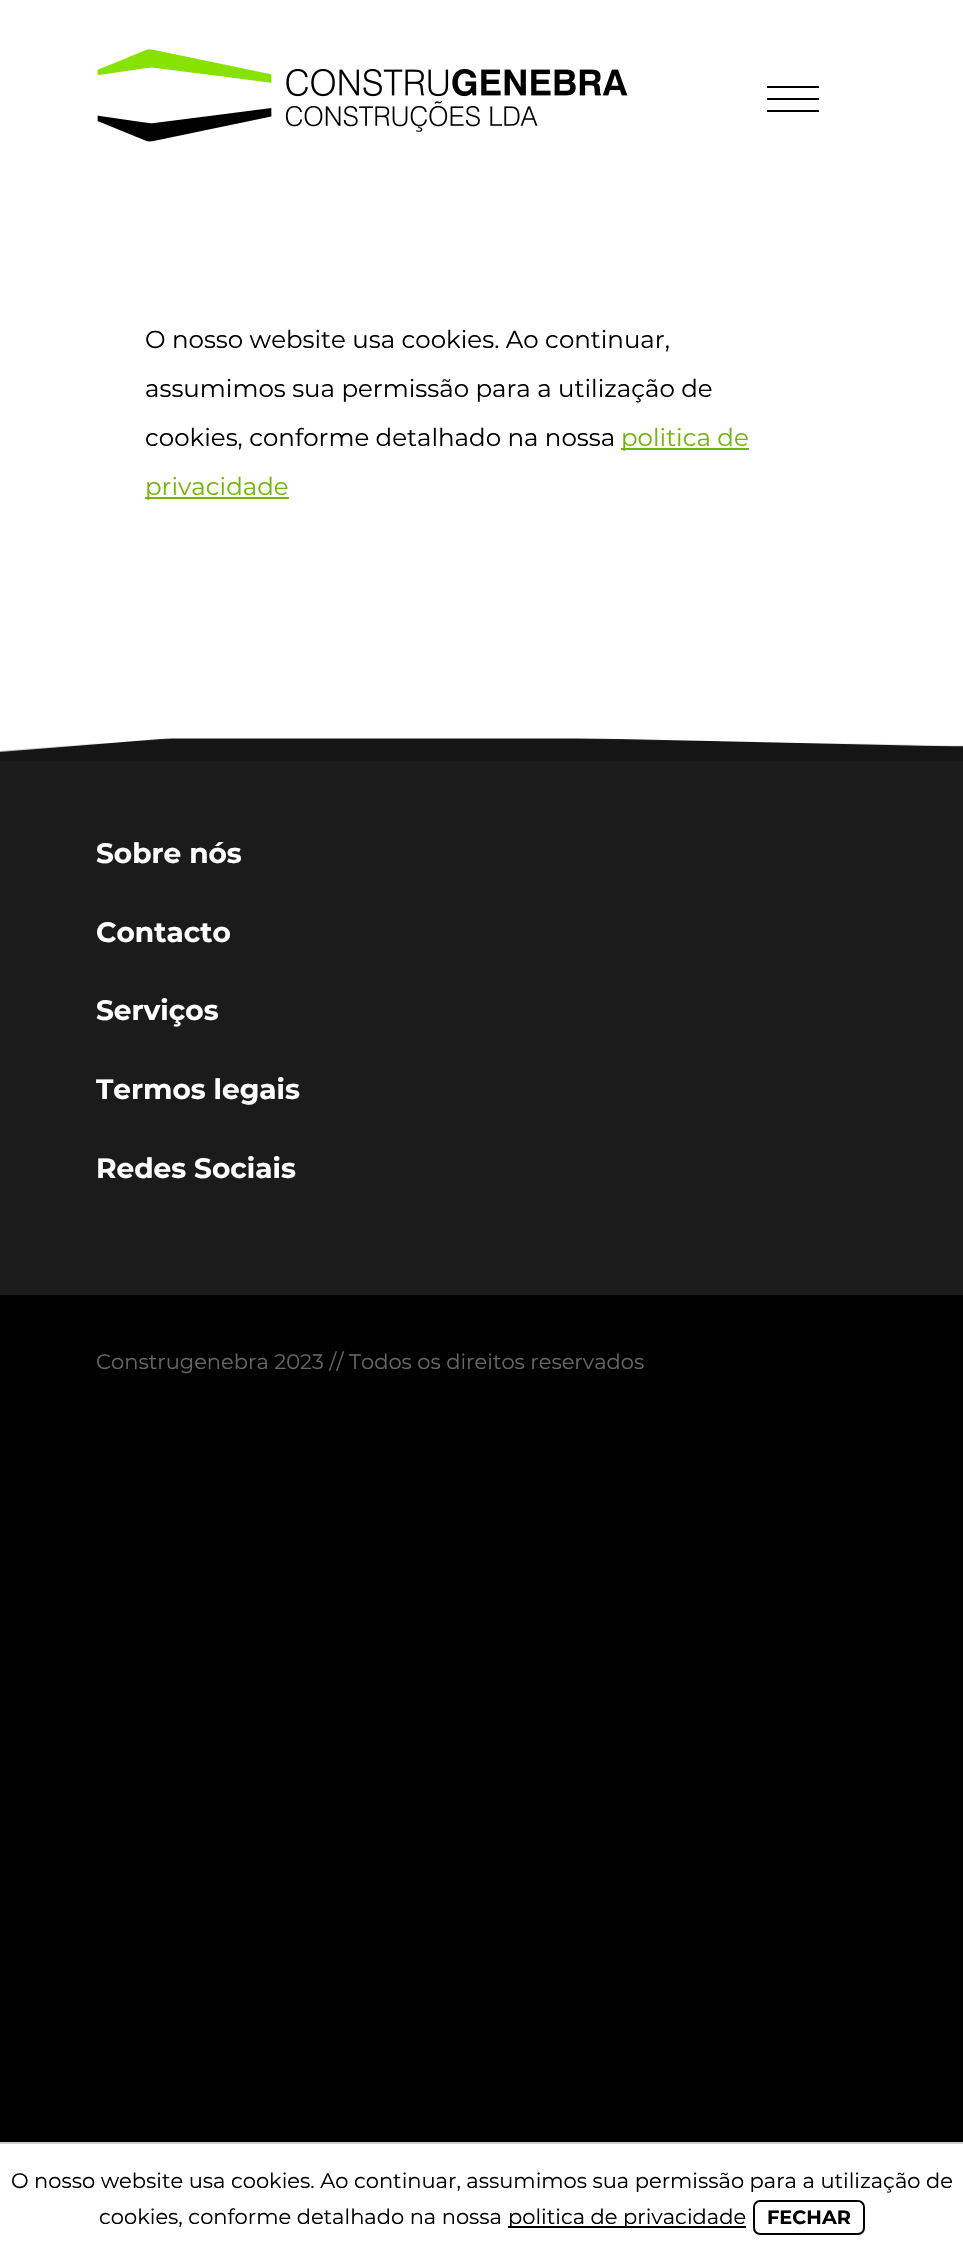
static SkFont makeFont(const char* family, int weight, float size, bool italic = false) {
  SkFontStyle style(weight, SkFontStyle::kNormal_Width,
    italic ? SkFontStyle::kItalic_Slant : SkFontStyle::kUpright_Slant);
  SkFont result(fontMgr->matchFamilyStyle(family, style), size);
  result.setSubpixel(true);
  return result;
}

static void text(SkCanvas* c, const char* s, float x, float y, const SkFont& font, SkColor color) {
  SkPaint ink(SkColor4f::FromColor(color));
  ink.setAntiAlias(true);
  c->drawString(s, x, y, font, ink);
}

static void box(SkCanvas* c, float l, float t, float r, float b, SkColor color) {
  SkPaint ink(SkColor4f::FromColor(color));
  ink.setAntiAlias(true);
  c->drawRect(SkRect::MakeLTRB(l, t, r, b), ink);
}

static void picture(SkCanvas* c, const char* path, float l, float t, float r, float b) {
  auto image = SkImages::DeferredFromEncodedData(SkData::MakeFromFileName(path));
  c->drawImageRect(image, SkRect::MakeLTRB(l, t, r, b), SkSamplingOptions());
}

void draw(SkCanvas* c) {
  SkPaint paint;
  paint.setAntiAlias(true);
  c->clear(0xff000000);
  box(c, 0, 0, 963, 739, 0xffffffff);
  picture(c, "img_01.png", 97, 49, 628, 142);
  box(c, 767, 86, 819, 88, 0xff000000);
  box(c, 767, 98, 819, 100, 0xff000000);
  box(c, 767, 110, 819, 112, 0xff000000);
  SkFont face1 = makeFont("Montserrat", 100, 24.5f);
  text(c, "O nosso website usa cookies. Ao continuar,", 145, 348, face1, 0xff000000);
  text(c, "assumimos sua permissão para a utilização de", 145, 397, face1, 0xff000000);
  text(c, "cookies, conforme detalhado na nossa", 145, 446, face1, 0xff000000);
  box(c, 621, 448, 749, 450, 0xff72b60a);
  text(c, "politica de", 621, 446, face1, 0xff72b60a);
  box(c, 145, 497, 289, 499, 0xff72b60a);
  text(c, "privacidade", 145, 495, face1, 0xff72b60a);
  picture(c, "img_02.png", 0, 738, 963, 761);
  box(c, 0, 761, 963, 1295, 0xff1b1b1b);
  SkFont face2 = makeFont("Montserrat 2", 100, 28);
  text(c, "Sobre nós", 96, 863, face2, 0xffffffff);
  text(c, "Contacto", 96, 942, face2, 0xffffffff);
  text(c, "Serviços", 96, 1020, face2, 0xffffffff);
  text(c, "Termos legais", 96, 1099, face2, 0xffffffff);
  text(c, "Redes Sociais", 96, 1178, face2, 0xffffffff);
  SkFont face3 = makeFont("Montserrat", 100, 21);
  text(c, "Construgenebra 2023 // Todos os direitos reservados", 96, 1369, face3, 0xff666666);
  box(c, 0, 2144, 963, 2251, 0xffffffff);
  box(c, 0, 2142, 963, 2144, 0xffcccccc);
  text(c, "O nosso website usa cookies. Ao continuar, assumimos sua permissão para a utilização de", 11, 2188, face3, 0xff000000);
  text(c, "cookies, conforme detalhado na nossa", 99, 2224, face3, 0xff000000);
  box(c, 508, 2226, 746, 2228, 0xff000000);
  text(c, "politica de privacidade", 508, 2224, face3, 0xff000000);
  paint.setStyle(SkPaint::kStroke_Style);
  paint.setStrokeWidth(2);
  paint.setColor(0xff000000);
  c->drawRoundRect(SkRect::MakeLTRB(754, 2201, 864, 2234), 6, 6, paint);
  SkFont face4 = makeFont("Montserrat 2", 100, 19.25f);
  text(c, "FECHAR", 767, 2224, face4, 0xff000000);
}
